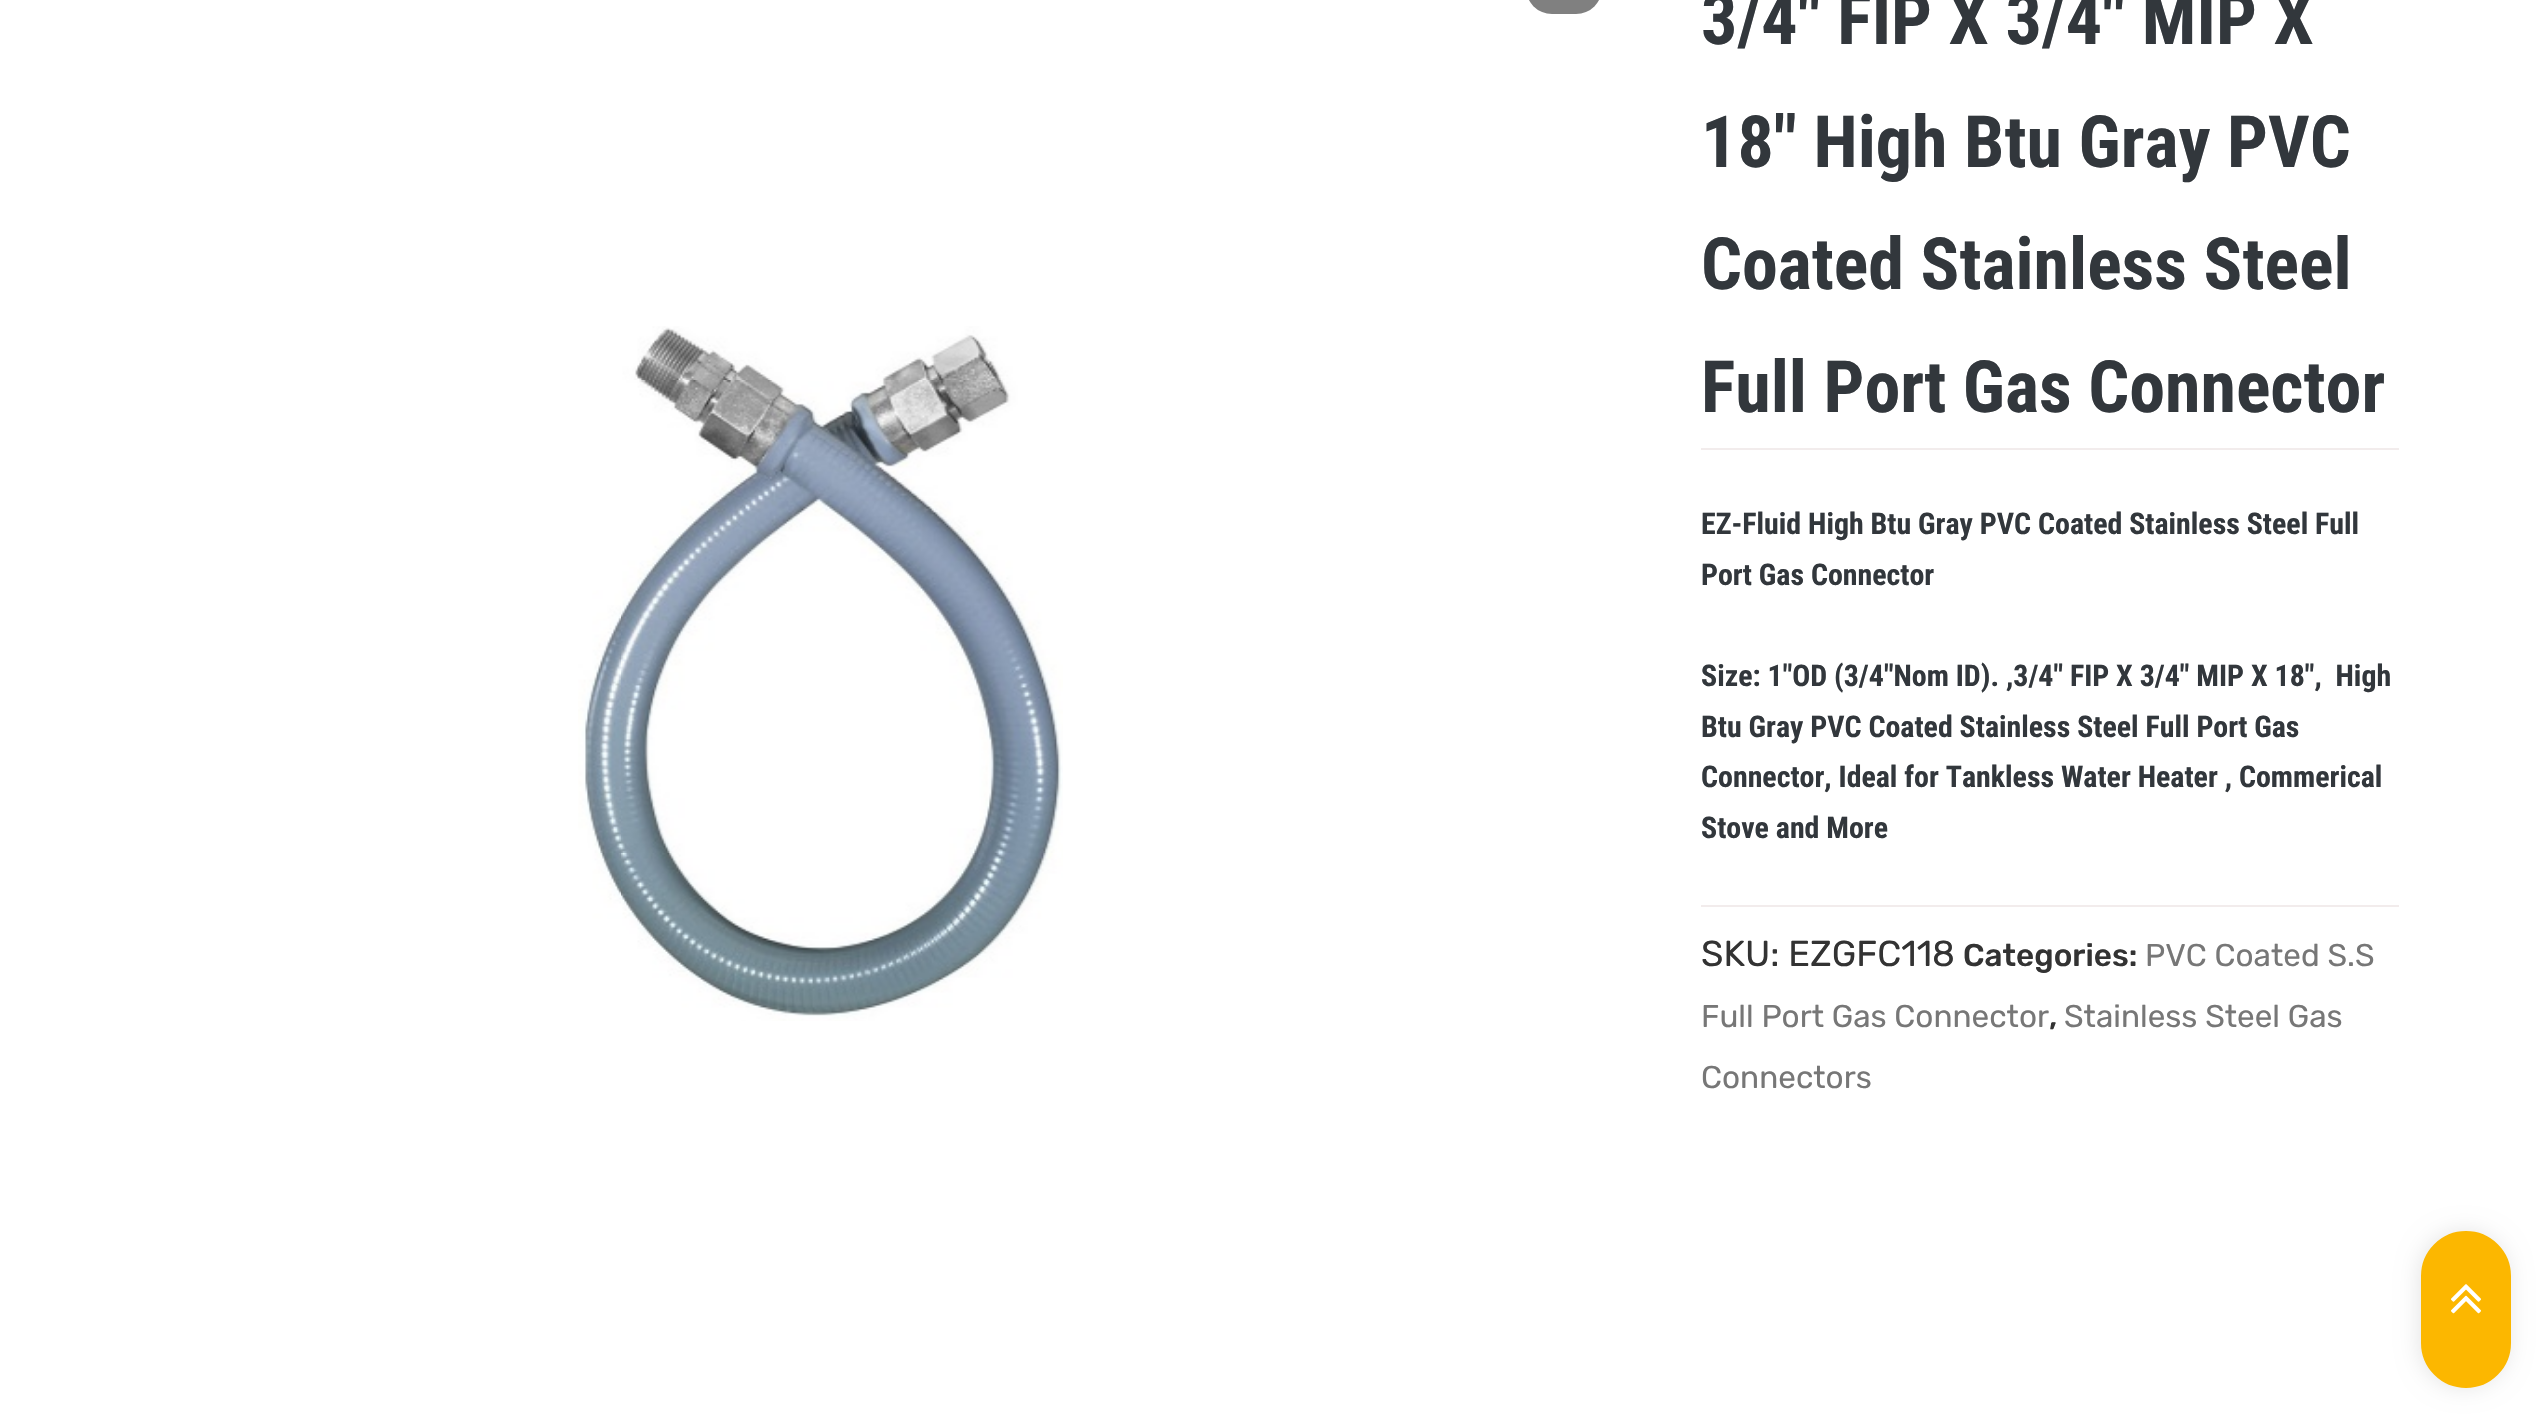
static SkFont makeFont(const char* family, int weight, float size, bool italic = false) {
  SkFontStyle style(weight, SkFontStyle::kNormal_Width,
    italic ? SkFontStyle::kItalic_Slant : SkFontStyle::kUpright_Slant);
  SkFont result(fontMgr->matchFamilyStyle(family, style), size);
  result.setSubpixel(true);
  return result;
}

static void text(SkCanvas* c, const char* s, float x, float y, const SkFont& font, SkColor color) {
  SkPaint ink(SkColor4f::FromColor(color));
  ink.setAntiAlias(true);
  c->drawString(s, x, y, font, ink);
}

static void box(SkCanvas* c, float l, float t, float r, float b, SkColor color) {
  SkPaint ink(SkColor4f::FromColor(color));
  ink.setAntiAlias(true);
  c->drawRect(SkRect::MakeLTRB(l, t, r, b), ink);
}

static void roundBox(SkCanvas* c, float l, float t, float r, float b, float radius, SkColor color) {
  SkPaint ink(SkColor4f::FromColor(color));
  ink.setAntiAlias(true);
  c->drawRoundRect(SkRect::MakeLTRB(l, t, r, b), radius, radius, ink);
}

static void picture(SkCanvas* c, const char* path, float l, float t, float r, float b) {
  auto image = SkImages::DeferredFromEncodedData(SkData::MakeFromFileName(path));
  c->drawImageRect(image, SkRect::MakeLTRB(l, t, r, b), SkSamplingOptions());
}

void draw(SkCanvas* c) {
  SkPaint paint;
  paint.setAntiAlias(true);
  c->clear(0xffffffff);
  roundBox(c, 1526, -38, 1602, 14, 38, 0xff808080);
  picture(c, "img_01.png", 578, 326, 1063, 1021);
  SkFont face1 = makeFont("Roboto Condensed", 700, 72);
  text(c, "3/4″ FIP X 3/4″ MIP X", 1701, 44, face1, 0xff32373c);
  text(c, "18″ High Btu Gray PVC", 1701, 167, face1, 0xff32373c);
  text(c, "Coated Stainless Steel", 1701, 289, face1, 0xff32373c);
  text(c, "Full Port Gas Connector", 1701, 412, face1, 0xff32373c);
  box(c, 1701, 448, 2399, 450, 0xfff2ecec);
  SkFont face2 = makeFont("Roboto Condensed", 700, 29.9f);
  text(c, "EZ-Fluid High Btu Gray PVC Coated Stainless Steel Full", 1701, 534, face2, 0xff32373c);
  text(c, "Port Gas Connector", 1701, 585, face2, 0xff32373c);
  text(c, "Size: 1″OD (3/4″Nom ID). ,3/4″ FIP X 3/4″ MIP X 18″,  High", 1701, 686, face2, 0xff32373c);
  text(c, "Btu Gray PVC Coated Stainless Steel Full Port Gas", 1701, 737, face2, 0xff32373c);
  text(c, "Connector, Ideal for Tankless Water Heater , Commerical", 1701, 787, face2, 0xff32373c);
  text(c, "Stove and More", 1701, 838, face2, 0xff32373c);
  box(c, 1701, 905, 2399, 907, 0xfff2ecec);
  SkFont face3 = makeFont("Rubik", 400, 36);
  text(c, "SKU: EZGFC118", 1701, 966, face3, 0xff333333);
  SkFont face4 = makeFont("Rubik", 500, 31.5f);
  text(c, "Categories:", 1963, 966, face4, 0xff333333);
  SkFont face5 = makeFont("Rubik", 400, 31.5f);
  text(c, "PVC Coated S.S", 2145, 966, face5, 0xff777777);
  text(c, "Full Port Gas Connector", 1701, 1027, face5, 0xff777777);
  text(c, ",", 2049, 1027, face4, 0xff333333);
  text(c, "Stainless Steel Gas", 2064, 1027, face5, 0xff777777);
  text(c, "Connectors", 1701, 1088, face5, 0xff777777);
  paint.setColor(0x1a000000);
  paint.setMaskFilter(SkMaskFilter::MakeBlur(kNormal_SkBlurStyle, 11));
  c->drawRoundRect(SkRect::MakeLTRB(2419, 1231, 2509, 1388), 45, 45, paint);
  paint.setMaskFilter(nullptr);
  paint.setColor(0xfffcb700);
  c->drawRoundRect(SkRect::MakeLTRB(2423.5f, 1233.5f, 2508.5f, 1385.5f), 42.5f, 42.5f, paint);
  paint.setStyle(SkPaint::kStroke_Style);
  paint.setStrokeWidth(5);
  c->drawRoundRect(SkRect::MakeLTRB(2423.5f, 1233.5f, 2508.5f, 1385.5f), 42.5f, 42.5f, paint);
  picture(c, "img_02.png", 2451, 1284, 2481, 1314);
}
